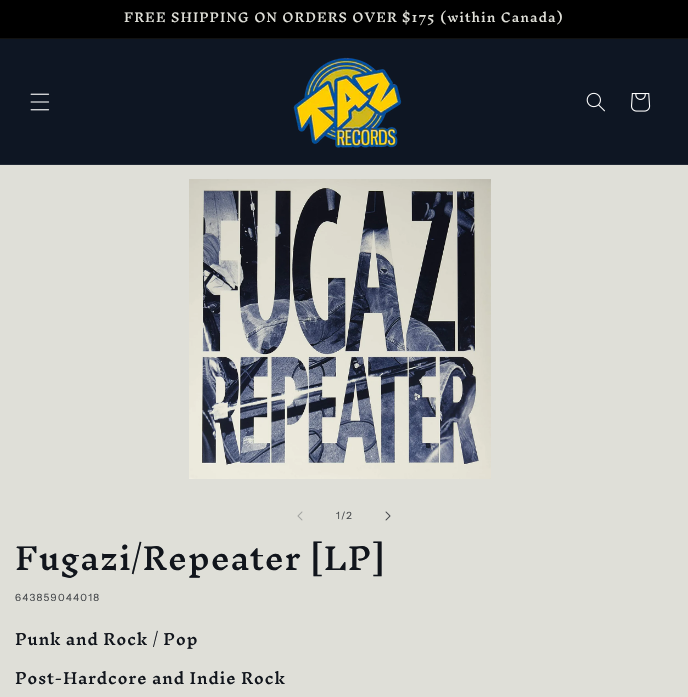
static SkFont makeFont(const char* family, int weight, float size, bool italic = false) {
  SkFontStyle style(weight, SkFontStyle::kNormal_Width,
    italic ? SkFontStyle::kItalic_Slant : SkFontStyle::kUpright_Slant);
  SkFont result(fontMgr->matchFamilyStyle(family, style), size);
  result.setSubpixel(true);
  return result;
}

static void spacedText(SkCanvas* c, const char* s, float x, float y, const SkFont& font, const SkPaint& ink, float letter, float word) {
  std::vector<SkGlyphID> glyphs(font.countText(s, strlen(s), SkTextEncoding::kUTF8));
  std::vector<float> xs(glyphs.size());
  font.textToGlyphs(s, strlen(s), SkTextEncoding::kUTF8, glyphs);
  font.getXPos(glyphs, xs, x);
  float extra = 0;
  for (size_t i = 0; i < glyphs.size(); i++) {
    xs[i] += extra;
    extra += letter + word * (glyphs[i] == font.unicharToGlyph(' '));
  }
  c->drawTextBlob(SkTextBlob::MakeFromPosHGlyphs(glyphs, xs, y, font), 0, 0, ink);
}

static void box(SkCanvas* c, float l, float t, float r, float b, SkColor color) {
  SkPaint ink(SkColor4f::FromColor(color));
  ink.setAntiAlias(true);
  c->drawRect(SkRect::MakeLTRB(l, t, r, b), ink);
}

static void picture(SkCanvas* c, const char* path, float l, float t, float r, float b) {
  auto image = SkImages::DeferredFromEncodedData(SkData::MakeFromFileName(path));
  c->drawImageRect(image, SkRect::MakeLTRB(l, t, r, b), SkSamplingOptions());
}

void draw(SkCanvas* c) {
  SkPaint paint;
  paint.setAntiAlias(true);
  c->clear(0xffdfdfd8);
  box(c, 0, 0, 688, 38, 0xff000000);
  box(c, 0, 38, 688, 39, 0xff121211);
  SkFont face1 = makeFont("Inknut Antiqua", 500, 12);
  paint.setColor(0xffdfdfd8);
  spacedText(c, "FREE SHIPPING ON ORDERS OVER $175 (within Canada)", 124, 22, face1, paint, 1, 0);
  box(c, 0, 39, 688, 164, 0xff0e1623);
  box(c, 0, 164, 688, 165, 0xff212935);
  picture(c, "img_01.png", 30, 93, 50, 111);
  picture(c, "img_02.png", 293, 57, 402, 148);
  picture(c, "img_03.png", 586, 92, 605, 112);
  picture(c, "img_04.png", 631, 93, 651, 112);
  picture(c, "img_05.png", 189, 179, 491, 479);
  picture(c, "img_06.png", 297, 511, 303, 521);
  SkFont face2 = makeFont("Instrument Sans", 400, 10);
  paint.setColor(0xff45484b);
  spacedText(c, "1/2", 336, 519, face2, paint, 1, 0);
  picture(c, "img_07.png", 385, 511, 391, 521);
  SkFont face3 = makeFont("Inknut Antiqua", 500, 30);
  paint.setColor(0xff11151c);
  spacedText(c, "Fugazi/Repeater [LP]", 15, 570, face3, paint, 0.6f, 0);
  paint.setColor(0xff45484b);
  spacedText(c, "643859044018", 15, 601, face2, paint, 1.25f, 0);
  SkFont face4 = makeFont("Inknut Antiqua", 500, 15);
  paint.setColor(0xff11151c);
  spacedText(c, "Punk and Rock / Pop", 15, 645, face4, paint, 0.6f, 0);
  spacedText(c, "Post-Hardcore and Indie Rock", 15, 684, face4, paint, 0.6f, 0);
}
